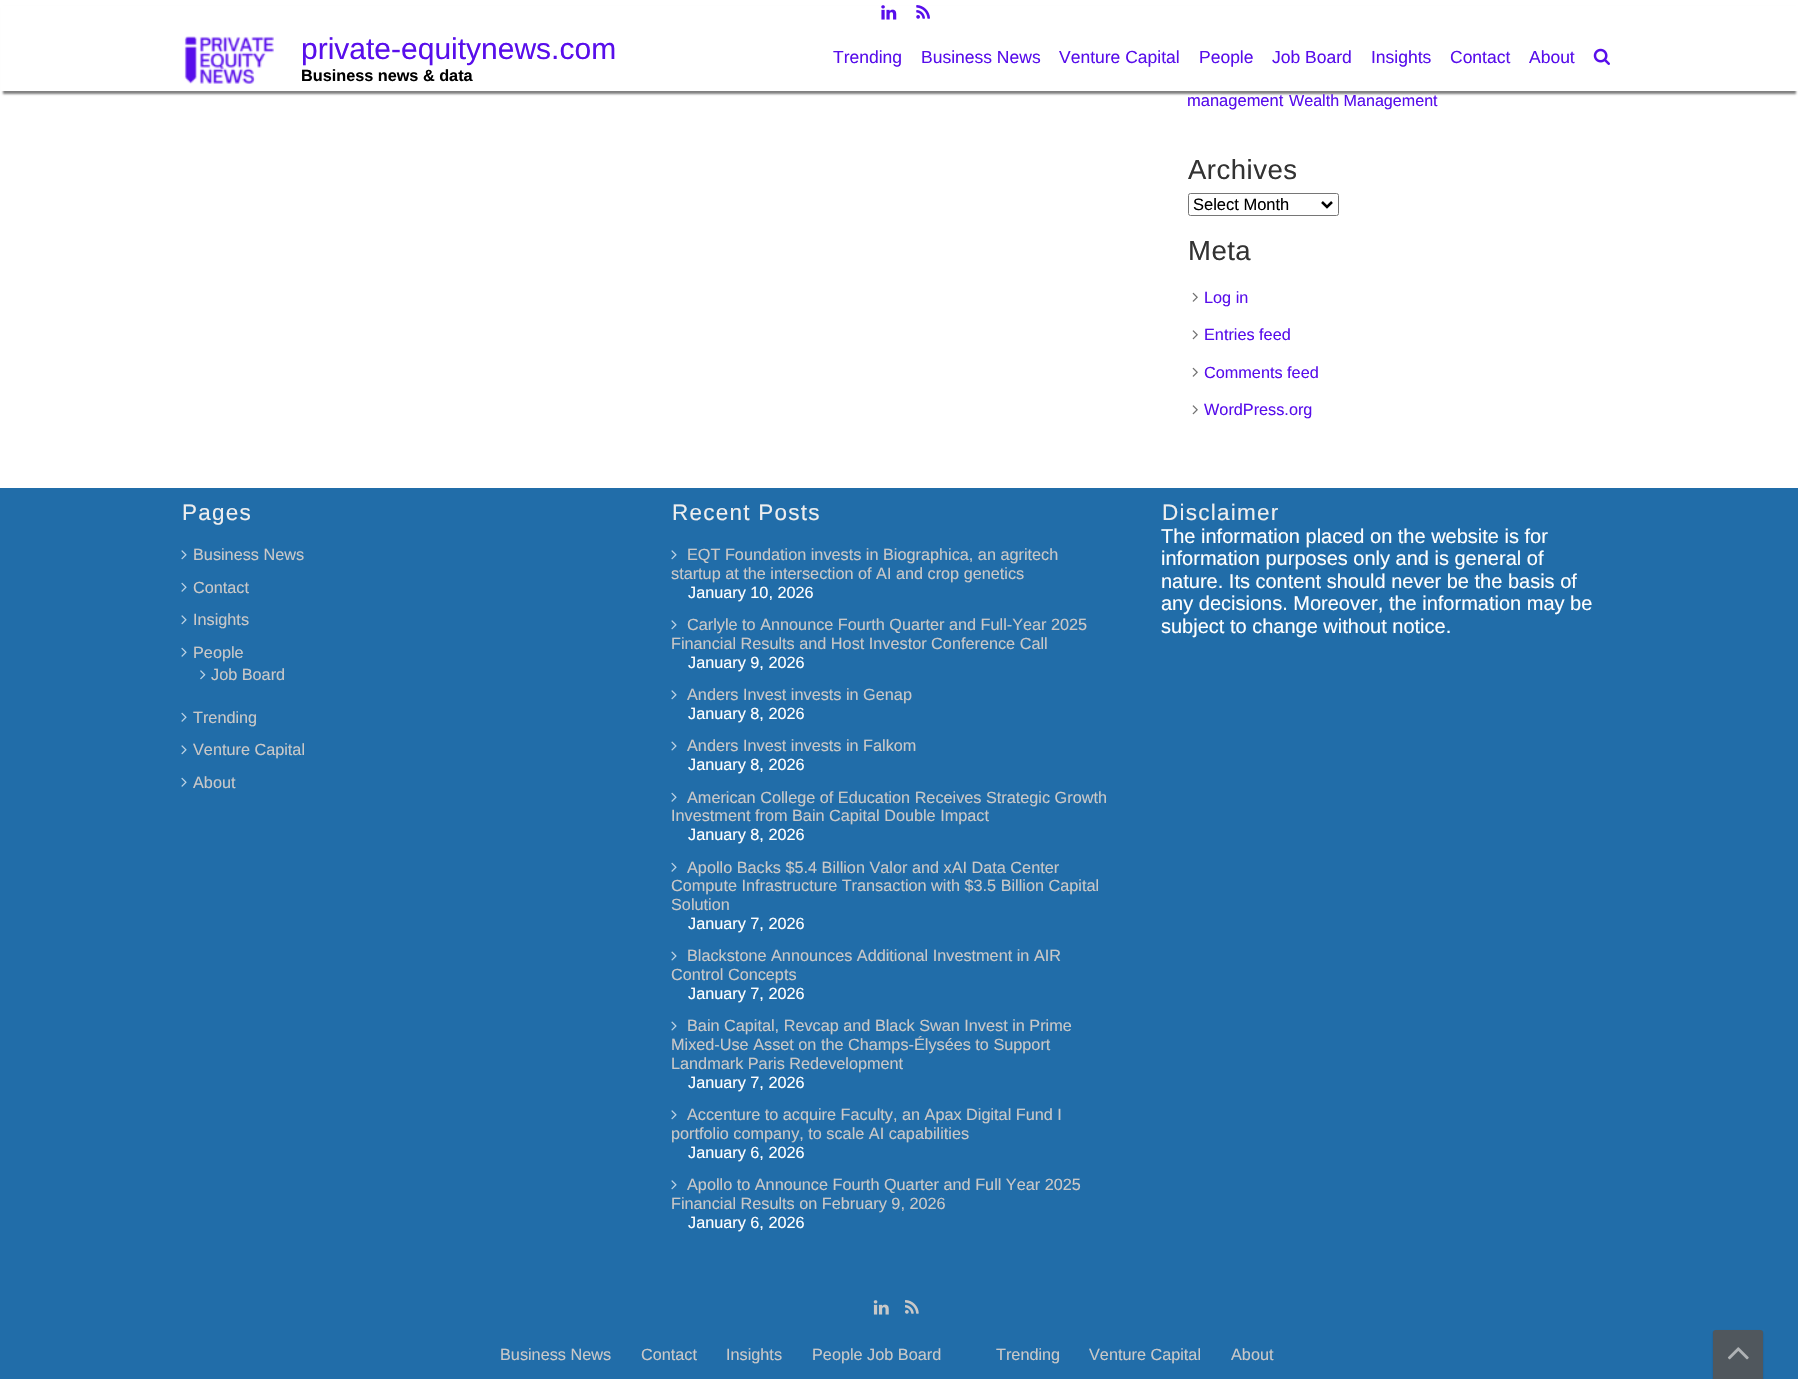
static SkFont makeFont(const char* family, int weight, float size, bool italic = false) {
  SkFontStyle style(weight, SkFontStyle::kNormal_Width,
    italic ? SkFontStyle::kItalic_Slant : SkFontStyle::kUpright_Slant);
  SkFont result(fontMgr->matchFamilyStyle(family, style), size);
  result.setSubpixel(true);
  return result;
}

static void text(SkCanvas* c, const char* s, float x, float y, const SkFont& font, SkColor color) {
  SkPaint ink(SkColor4f::FromColor(color));
  ink.setAntiAlias(true);
  c->drawString(s, x, y, font, ink);
}

static void spacedText(SkCanvas* c, const char* s, float x, float y, const SkFont& font, const SkPaint& ink, float letter, float word) {
  std::vector<SkGlyphID> glyphs(font.countText(s, strlen(s), SkTextEncoding::kUTF8));
  std::vector<float> xs(glyphs.size());
  font.textToGlyphs(s, strlen(s), SkTextEncoding::kUTF8, glyphs);
  font.getXPos(glyphs, xs, x);
  float extra = 0;
  for (size_t i = 0; i < glyphs.size(); i++) {
    xs[i] += extra;
    extra += letter + word * (glyphs[i] == font.unicharToGlyph(' '));
  }
  c->drawTextBlob(SkTextBlob::MakeFromPosHGlyphs(glyphs, xs, y, font), 0, 0, ink);
}

static void box(SkCanvas* c, float l, float t, float r, float b, SkColor color) {
  SkPaint ink(SkColor4f::FromColor(color));
  ink.setAntiAlias(true);
  c->drawRect(SkRect::MakeLTRB(l, t, r, b), ink);
}

static void picture(SkCanvas* c, const char* path, float l, float t, float r, float b) {
  auto image = SkImages::DeferredFromEncodedData(SkData::MakeFromFileName(path));
  c->drawImageRect(image, SkRect::MakeLTRB(l, t, r, b), SkSamplingOptions());
}

void draw(SkCanvas* c) {
  SkPaint paint;
  paint.setAntiAlias(true);
  c->clear(0xffffffff);
  paint.setColor(0xff808080);
  paint.setMaskFilter(SkMaskFilter::MakeBlur(kNormal_SkBlurStyle, 1));
  c->drawRect(SkRect::MakeLTRB(3, 8, 1796, 94), paint);
  paint.setMaskFilter(nullptr);
  box(c, 1, 6, 1798, 91, 0xffffffff);
  picture(c, "img_01.png", 881, 5, 897, 20);
  picture(c, "img_02.png", 916, 5, 930, 19);
  picture(c, "img_03.png", 184, 36, 274, 84);
  SkFont face1 = makeFont("Liberation Sans", 400, 30);
  text(c, "private-equitynews.com", 301, 59, face1, 0xff580eeb);
  SkFont face2 = makeFont("Liberation Sans", 700, 16.25f);
  text(c, "Business news & data", 301, 81, face2, 0xff000000);
  SkFont face3 = makeFont("Liberation Sans", 400, 17.5f);
  text(c, "Trending", 833, 63, face3, 0xff580eeb);
  text(c, "Business News", 921, 63, face3, 0xff580eeb);
  text(c, "Venture Capital", 1059, 63, face3, 0xff580eeb);
  text(c, "People", 1199, 63, face3, 0xff580eeb);
  text(c, "Job Board", 1272, 63, face3, 0xff580eeb);
  text(c, "Insights", 1371, 63, face3, 0xff580eeb);
  text(c, "Contact", 1450, 63, face3, 0xff580eeb);
  text(c, "About", 1529, 63, face3, 0xff580eeb);
  picture(c, "img_04.png", 1593, 48, 1610, 65);
  SkFont face4 = makeFont("Liberation Sans", 400, 16.5f);
  text(c, "management", 1187, 106, face4, 0xff580eeb);
  SkFont face5 = makeFont("Liberation Sans", 400, 16.1f);
  text(c, "Wealth Management", 1289, 106, face5, 0xff580eeb);
  SkFont face6 = makeFont("Liberation Sans", 400, 27.5f);
  paint.setColor(0xff333333);
  spacedText(c, "Archives", 1188, 179, face6, paint, 0.5f, 0);
  paint.setStyle(SkPaint::kStroke_Style);
  paint.setStrokeWidth(1);
  paint.setColor(0xff767676);
  c->drawRoundRect(SkRect::MakeLTRB(1188.5f, 193.5f, 1338.5f, 215.5f), 2, 2, paint);
  paint.setStrokeWidth(2.5f);
  paint.setColor(0xff000000);
  c->drawPath(SkPathBuilder().moveTo(1322, 202).lineTo(1327, 207).lineTo(1332, 202).detach(), paint);
  text(c, "Select Month", 1193, 210, face4, 0xff000000);
  paint.setStyle(SkPaint::kFill_Style);
  paint.setColor(0xff333333);
  spacedText(c, "Meta", 1188, 260, face6, paint, 0.5f, 0);
  picture(c, "img_05.png", 1192, 292, 1198, 302);
  SkFont face7 = makeFont("Liberation Sans", 400, 16.25f);
  text(c, "Log in", 1204, 303, face7, 0xff580eeb);
  picture(c, "img_06.png", 1192, 330, 1198, 340);
  text(c, "Entries feed", 1204, 340, face7, 0xff580eeb);
  picture(c, "img_05.png", 1192, 367, 1198, 377);
  text(c, "Comments feed", 1204, 378, face7, 0xff580eeb);
  picture(c, "img_06.png", 1192, 405, 1198, 415);
  text(c, "WordPress.org", 1204, 415, face7, 0xff580eeb);
  box(c, 0, 488, 1798, 1379, 0xff216da9);
  SkFont face8 = makeFont("Liberation Sans", 400, 22.5f);
  paint.setColor(0xffeeeeee);
  spacedText(c, "Pages", 182, 520, face8, paint, 1.25f, 0);
  picture(c, "img_07.png", 181, 550, 187, 560);
  text(c, "Business News", 193, 560, face7, 0xffc9c8c8);
  picture(c, "img_08.png", 181, 582, 187, 592);
  text(c, "Contact", 193, 593, face7, 0xffc9c8c8);
  picture(c, "img_07.png", 181, 615, 187, 625);
  text(c, "Insights", 193, 625, face7, 0xffc9c8c8);
  picture(c, "img_08.png", 181, 647, 187, 657);
  text(c, "People", 193, 658, face7, 0xffc9c8c8);
  picture(c, "img_09.png", 200, 670, 206, 680);
  text(c, "Job Board", 211, 680, face7, 0xffc9c8c8);
  picture(c, "img_08.png", 181, 712, 187, 722);
  text(c, "Trending", 193, 723, face7, 0xffc9c8c8);
  picture(c, "img_07.png", 181, 745, 187, 755);
  text(c, "Venture Capital", 193, 755, face7, 0xffc9c8c8);
  picture(c, "img_08.png", 181, 777, 187, 787);
  text(c, "About", 193, 788, face7, 0xffc9c8c8);
  spacedText(c, "Recent Posts", 672, 520, face8, paint, 1.25f, 0);
  picture(c, "img_07.png", 671, 550, 677, 560);
  text(c, "EQT Foundation invests in Biographica, an agritech", 687, 560, face7, 0xffc9c8c8);
  text(c, "startup at the intersection of AI and crop genetics", 671, 579, face7, 0xffc9c8c8);
  text(c, "January 10, 2026", 688, 598, face7, 0xffffffff);
  picture(c, "img_07.png", 671, 620, 677, 630);
  text(c, "Carlyle to Announce Fourth Quarter and Full-Year 2025", 687, 630, face7, 0xffc9c8c8);
  text(c, "Financial Results and Host Investor Conference Call", 671, 649, face7, 0xffc9c8c8);
  text(c, "January 9, 2026", 688, 668, face7, 0xffffffff);
  picture(c, "img_07.png", 671, 690, 677, 700);
  text(c, "Anders Invest invests in Genap", 687, 700, face7, 0xffc9c8c8);
  text(c, "January 8, 2026", 688, 719, face7, 0xffffffff);
  picture(c, "img_10.png", 671, 741, 677, 751);
  text(c, "Anders Invest invests in Falkom", 687, 751, face7, 0xffc9c8c8);
  text(c, "January 8, 2026", 688, 770, face7, 0xffffffff);
  picture(c, "img_08.png", 671, 792, 677, 802);
  text(c, "American College of Education Receives Strategic Growth", 687, 803, face7, 0xffc9c8c8);
  text(c, "Investment from Bain Capital Double Impact", 671, 821, face7, 0xffc9c8c8);
  text(c, "January 8, 2026", 688, 840, face7, 0xffffffff);
  picture(c, "img_08.png", 671, 862, 677, 872);
  text(c, "Apollo Backs $5.4 Billion Valor and xAI Data Center", 687, 873, face7, 0xffc9c8c8);
  text(c, "Compute Infrastructure Transaction with $3.5 Billion Capital", 671, 891, face7, 0xffc9c8c8);
  text(c, "Solution", 671, 910, face7, 0xffc9c8c8);
  text(c, "January 7, 2026", 688, 929, face7, 0xffffffff);
  picture(c, "img_10.png", 671, 951, 677, 961);
  text(c, "Blackstone Announces Additional Investment in AIR", 687, 961, face7, 0xffc9c8c8);
  text(c, "Control Concepts", 671, 980, face7, 0xffc9c8c8);
  text(c, "January 7, 2026", 688, 999, face7, 0xffffffff);
  picture(c, "img_10.png", 671, 1021, 677, 1031);
  text(c, "Bain Capital, Revcap and Black Swan Invest in Prime", 687, 1031, face7, 0xffc9c8c8);
  text(c, "Mixed-Use Asset on the Champs-Élysées to Support", 671, 1050, face7, 0xffc9c8c8);
  text(c, "Landmark Paris Redevelopment", 671, 1069, face7, 0xffc9c8c8);
  text(c, "January 7, 2026", 688, 1088, face7, 0xffffffff);
  picture(c, "img_07.png", 671, 1110, 677, 1120);
  text(c, "Accenture to acquire Faculty, an Apax Digital Fund I", 687, 1120, face7, 0xffc9c8c8);
  text(c, "portfolio company, to scale AI capabilities", 671, 1139, face7, 0xffc9c8c8);
  text(c, "January 6, 2026", 688, 1158, face7, 0xffffffff);
  picture(c, "img_07.png", 671, 1180, 677, 1190);
  text(c, "Apollo to Announce Fourth Quarter and Full Year 2025", 687, 1190, face7, 0xffc9c8c8);
  text(c, "Financial Results on February 9, 2026", 671, 1209, face7, 0xffc9c8c8);
  text(c, "January 6, 2026", 688, 1228, face7, 0xffffffff);
  spacedText(c, "Disclaimer", 1162, 520, face8, paint, 1.25f, 0);
  SkFont face9 = makeFont("Liberation Sans", 400, 20);
  text(c, "The information placed on the website is for", 1161, 543, face9, 0xffffffff);
  text(c, "information purposes only and is general of", 1161, 565, face9, 0xffffffff);
  text(c, "nature. Its content should never be the basis of", 1161, 588, face9, 0xffffffff);
  text(c, "any decisions. Moreover, the information may be", 1161, 610, face9, 0xffffffff);
  text(c, "subject to change without notice.", 1161, 633, face9, 0xffffffff);
  picture(c, "img_11.png", 873, 1300, 889, 1315);
  picture(c, "img_12.png", 905, 1300, 919, 1314);
  text(c, "Business News", 500, 1360, face7, 0xffc9c8c8);
  text(c, "Contact", 641, 1360, face7, 0xffc9c8c8);
  text(c, "Insights", 726, 1360, face7, 0xffc9c8c8);
  text(c, "People Job Board", 812, 1360, face7, 0xffc9c8c8);
  text(c, "Trending", 996, 1360, face7, 0xffc9c8c8);
  text(c, "Venture Capital", 1089, 1360, face7, 0xffc9c8c8);
  text(c, "About", 1231, 1360, face7, 0xffc9c8c8);
  paint.setColor(0x40030b11);
  paint.setMaskFilter(SkMaskFilter::MakeBlur(kNormal_SkBlurStyle, 1));
  c->drawRoundRect(SkRect::MakeLTRB(1713, 1331, 1763, 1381), 2.5f, 2.5f, paint);
  paint.setMaskFilter(nullptr);
  paint.setColor(0xff50575d);
  c->drawPath(SkPathBuilder().moveTo(1715.5f, 1330).lineTo(1760.5f, 1330).cubicTo(1762, 1330, 1763, 1331, 1763, 1332.5f).lineTo(1763, 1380).lineTo(1713, 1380).lineTo(1713, 1332.5f).cubicTo(1713, 1331, 1714, 1330, 1715.5f, 1330).close().detach(), paint);
  picture(c, "img_13.png", 1727, 1347, 1749, 1360);
}
